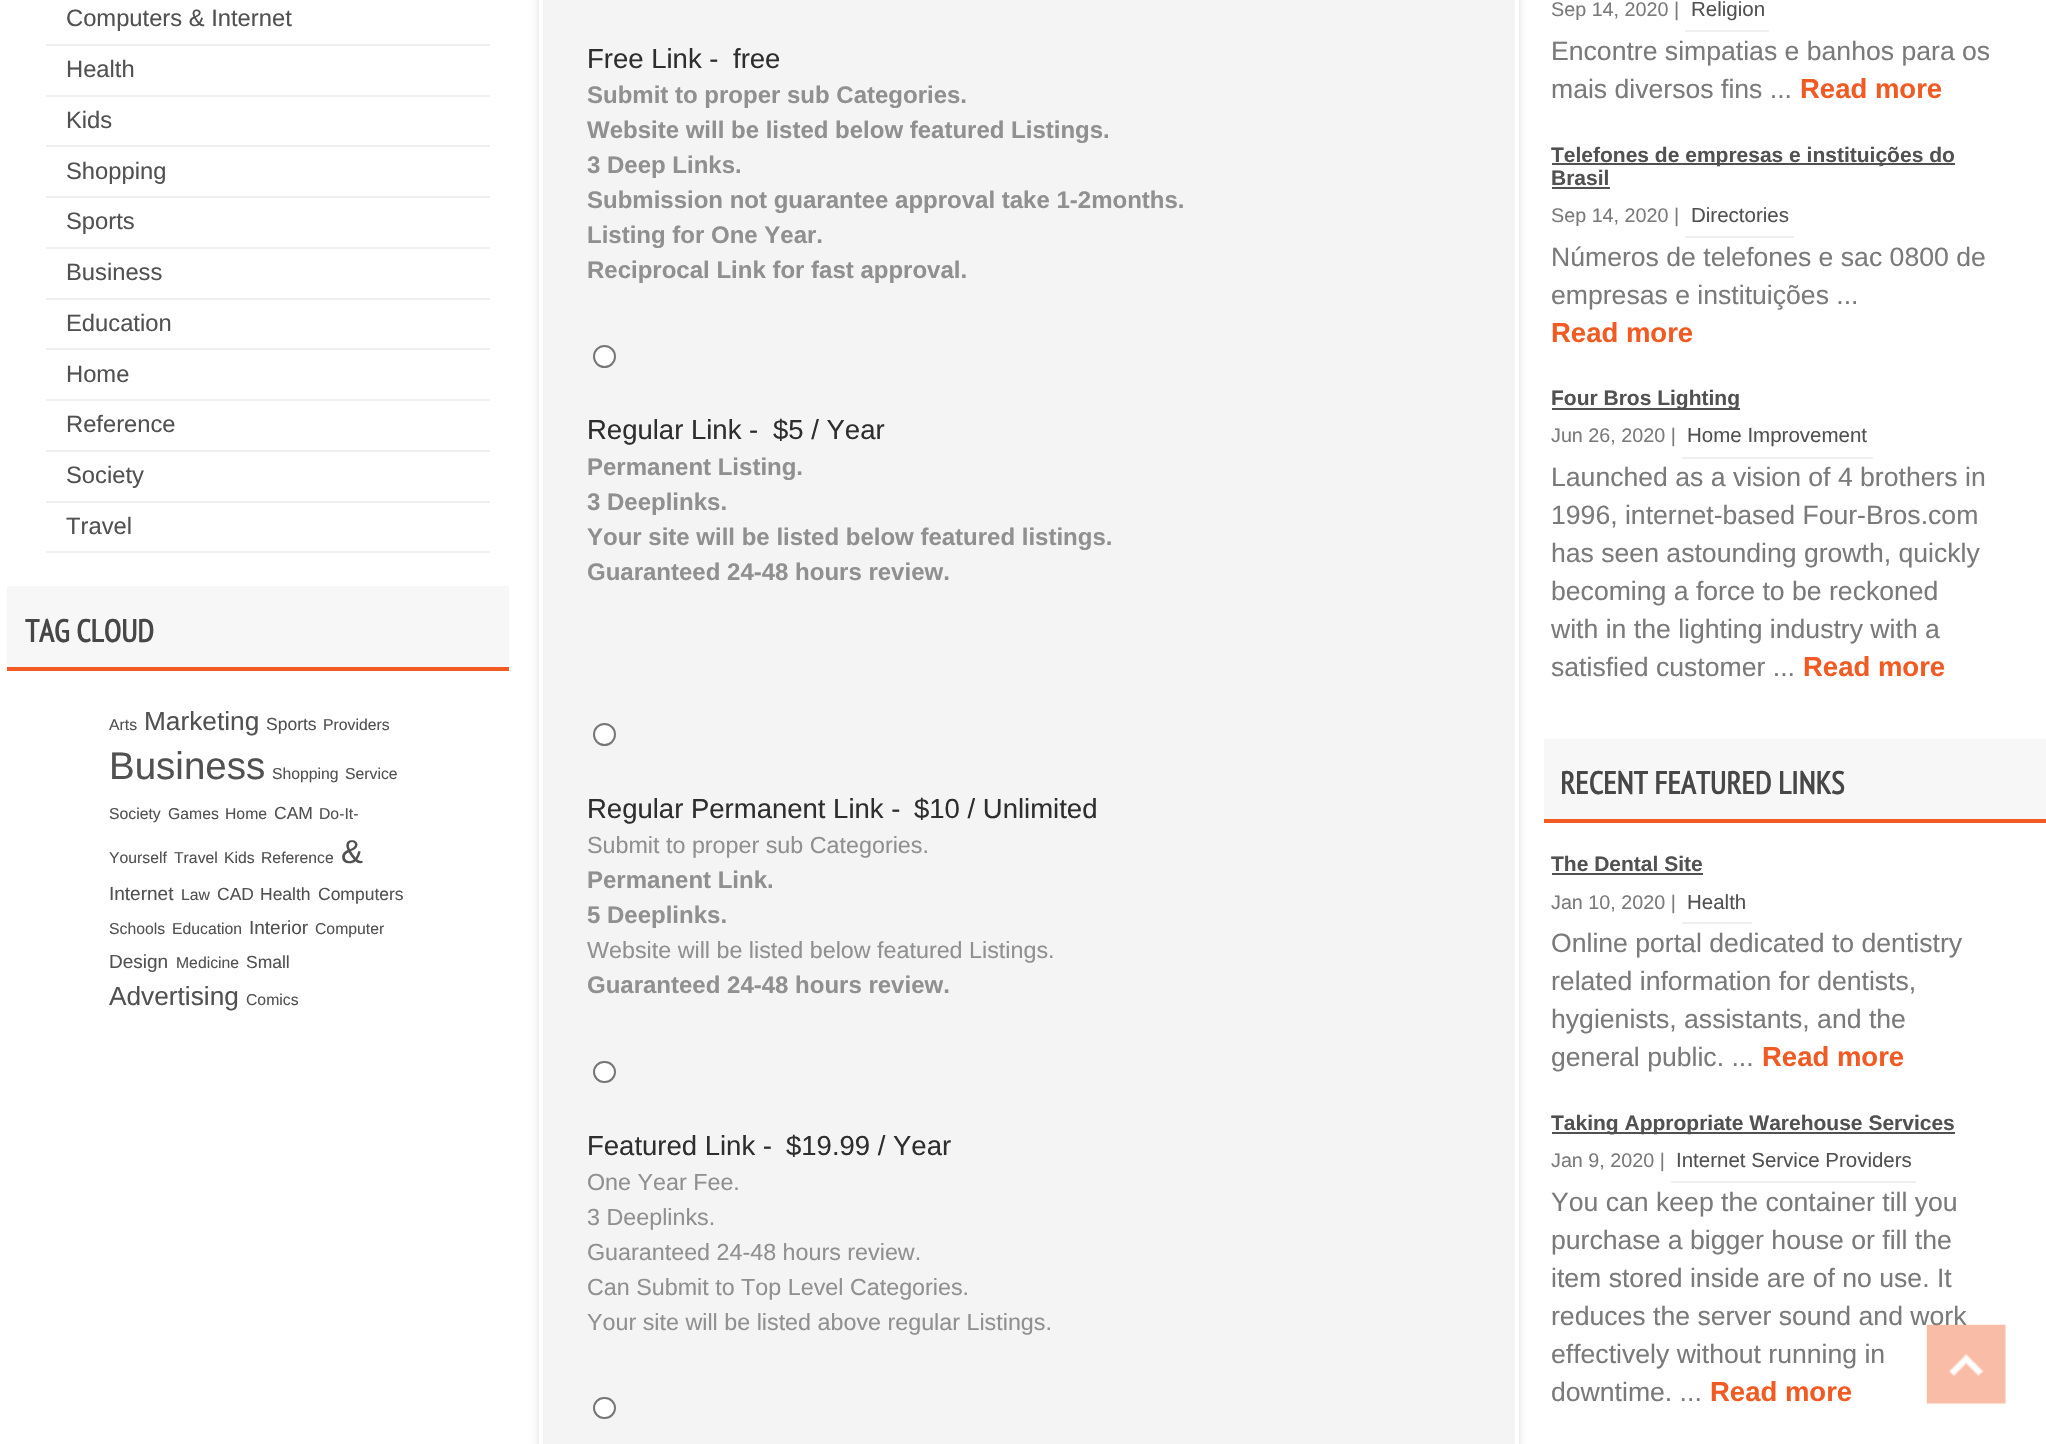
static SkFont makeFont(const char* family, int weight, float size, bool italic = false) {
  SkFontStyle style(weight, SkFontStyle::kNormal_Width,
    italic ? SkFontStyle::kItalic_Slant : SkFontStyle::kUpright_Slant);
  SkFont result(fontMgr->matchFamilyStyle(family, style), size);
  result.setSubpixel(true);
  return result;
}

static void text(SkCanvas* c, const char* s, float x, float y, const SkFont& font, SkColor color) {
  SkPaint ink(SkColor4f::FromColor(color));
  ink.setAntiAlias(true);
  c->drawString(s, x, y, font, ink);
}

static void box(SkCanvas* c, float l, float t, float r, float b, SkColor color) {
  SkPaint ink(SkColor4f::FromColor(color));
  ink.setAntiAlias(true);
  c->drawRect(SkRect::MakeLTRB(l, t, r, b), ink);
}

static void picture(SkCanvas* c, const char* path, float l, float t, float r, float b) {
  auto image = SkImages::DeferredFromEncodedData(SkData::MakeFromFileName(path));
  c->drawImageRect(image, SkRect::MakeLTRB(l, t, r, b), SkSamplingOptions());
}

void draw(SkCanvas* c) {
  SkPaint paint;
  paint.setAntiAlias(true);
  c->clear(0xffffffff);
  box(c, 46, 44, 490, 46, 0xffefefef);
  SkFont face1 = makeFont("Liberation Sans", 400, 23.75f);
  text(c, "Computers & Internet", 66, 26, face1, 0xff515151);
  box(c, 46, 95, 490, 97, 0xffefefef);
  text(c, "Health", 66, 77, face1, 0xff515151);
  box(c, 46, 145, 490, 147, 0xffefefef);
  text(c, "Kids", 66, 128, face1, 0xff515151);
  box(c, 46, 196, 490, 198, 0xffefefef);
  text(c, "Shopping", 66, 179, face1, 0xff515151);
  box(c, 46, 247, 490, 249, 0xffefefef);
  text(c, "Sports", 66, 229, face1, 0xff515151);
  box(c, 46, 298, 490, 300, 0xffefefef);
  text(c, "Business", 66, 280, face1, 0xff515151);
  box(c, 46, 348, 490, 350, 0xffefefef);
  text(c, "Education", 66, 331, face1, 0xff515151);
  box(c, 46, 399, 490, 401, 0xffefefef);
  text(c, "Home", 66, 382, face1, 0xff515151);
  box(c, 46, 450, 490, 452, 0xffefefef);
  text(c, "Reference", 66, 432, face1, 0xff515151);
  box(c, 46, 501, 490, 503, 0xffefefef);
  text(c, "Society", 66, 483, face1, 0xff515151);
  box(c, 46, 551, 490, 553, 0xffefefef);
  text(c, "Travel", 66, 534, face1, 0xff515151);
  box(c, 7, 586, 509, 667, 0xfff7f7f7);
  box(c, 7, 667, 509, 671, 0xfff15a23);
  SkFont face2 = makeFont("PT Sans Narrow", 700, 31.5f);
  text(c, "TAG CLOUD", 25, 642, face2, 0xff474747);
  SkFont face3 = makeFont("Liberation Sans", 400, 15.75f);
  text(c, "Arts", 109, 730, face3, 0xff515151);
  SkFont face4 = makeFont("Liberation Sans", 400, 26.25f);
  text(c, "Marketing", 144, 730, face4, 0xff515151);
  SkFont face5 = makeFont("Liberation Sans", 400, 17.5f);
  text(c, "Sports", 266, 730, face5, 0xff515151);
  text(c, "Providers", 323, 730, face3, 0xff515151);
  SkFont face6 = makeFont("Liberation Sans", 400, 38.5f);
  text(c, "Business", 109, 779, face6, 0xff515151);
  text(c, "Shopping", 272, 779, face3, 0xff515151);
  text(c, "Service", 345, 779, face3, 0xff515151);
  text(c, "Society", 109, 819, face3, 0xff515151);
  text(c, "Games", 168, 819, face3, 0xff515151);
  text(c, "Home", 225, 819, face3, 0xff515151);
  text(c, "CAM", 274, 819, face5, 0xff515151);
  text(c, "Do-It-", 319, 819, face3, 0xff515151);
  text(c, "Yourself", 109, 863, face3, 0xff515151);
  text(c, "Travel", 174, 863, face3, 0xff515151);
  text(c, "Kids", 224, 863, face3, 0xff515151);
  text(c, "Reference", 261, 863, face3, 0xff515151);
  SkFont face7 = makeFont("Liberation Sans", 400, 33);
  text(c, "&", 341, 863, face7, 0xff515151);
  SkFont face8 = makeFont("Liberation Sans", 400, 19);
  text(c, "Internet", 109, 900, face8, 0xff515151);
  text(c, "Law", 181, 900, face3, 0xff515151);
  text(c, "CAD", 217, 900, face5, 0xff515151);
  text(c, "Health", 260, 900, face5, 0xff515151);
  text(c, "Computers", 318, 900, face5, 0xff515151);
  text(c, "Schools", 109, 934, face3, 0xff515151);
  text(c, "Education", 172, 934, face3, 0xff515151);
  text(c, "Interior", 249, 934, face8, 0xff515151);
  text(c, "Computer", 315, 934, face3, 0xff515151);
  text(c, "Design", 109, 968, face8, 0xff515151);
  text(c, "Medicine", 176, 968, face3, 0xff515151);
  text(c, "Small", 246, 968, face5, 0xff515151);
  text(c, "Advertising", 109, 1005, face4, 0xff515151);
  text(c, "Comics", 246, 1005, face3, 0xff515151);
  paint.setColor(0xffdddddd);
  paint.setMaskFilter(SkMaskFilter::MakeBlur(kNormal_SkBlurStyle, 3.5f));
  c->drawRect(SkRect::MakeLTRB(539, -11, 1519, 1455), paint);
  paint.setMaskFilter(nullptr);
  paint.setColor(0xfff4f4f4);
  c->drawRect(SkRect::MakeLTRB(541, -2, 1517, 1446), paint);
  paint.setStyle(SkPaint::kStroke_Style);
  paint.setStrokeWidth(4);
  paint.setColor(0xffffffff);
  c->drawRect(SkRect::MakeLTRB(541, -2, 1517, 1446), paint);
  SkFont face9 = makeFont("Liberation Sans", 400, 27.5f);
  text(c, "Free Link -", 587, 68, face9, 0xff2e2e2e);
  text(c, "free", 733, 68, face9, 0xff2e2e2e);
  SkFont face10 = makeFont("Liberation Sans", 700, 24);
  text(c, "Submit to proper sub Categories.", 587, 103, face10, 0xff909090);
  text(c, "Website will be listed below featured Listings.", 587, 138, face10, 0xff909090);
  text(c, "3 Deep Links.", 587, 173, face10, 0xff909090);
  text(c, "Submission not guarantee approval take 1-2months.", 587, 208, face10, 0xff909090);
  text(c, "Listing for One Year.", 587, 243, face10, 0xff909090);
  text(c, "Reciprocal Link for fast approval.", 587, 278, face10, 0xff909090);
  paint.setStyle(SkPaint::kFill_Style);
  c->drawCircle(604.5f, 356.5f, 10.5f, paint);
  paint.setStyle(SkPaint::kStroke_Style);
  paint.setStrokeWidth(2);
  paint.setColor(0xff767676);
  c->drawCircle(604.5f, 356.5f, 10.5f, paint);
  text(c, "Regular Link -", 587, 439, face9, 0xff2e2e2e);
  text(c, "$5 / Year", 773, 439, face9, 0xff2e2e2e);
  text(c, "Permanent Listing.", 587, 475, face10, 0xff909090);
  text(c, "3 Deeplinks.", 587, 510, face10, 0xff909090);
  text(c, "Your site will be listed below featured listings.", 587, 545, face10, 0xff909090);
  text(c, "Guaranteed 24-48 hours review.", 587, 580, face10, 0xff909090);
  paint.setStyle(SkPaint::kFill_Style);
  paint.setColor(0xffffffff);
  c->drawCircle(604.5f, 734.5f, 10.5f, paint);
  paint.setStyle(SkPaint::kStroke_Style);
  paint.setColor(0xff767676);
  c->drawCircle(604.5f, 734.5f, 10.5f, paint);
  text(c, "Regular Permanent Link -", 587, 818, face9, 0xff2e2e2e);
  text(c, "$10 / Unlimited", 914, 818, face9, 0xff2e2e2e);
  SkFont face11 = makeFont("Liberation Sans", 400, 23.3f);
  text(c, "Submit to proper sub Categories.", 587, 853, face11, 0xff909090);
  text(c, "Permanent Link.", 587, 888, face10, 0xff909090);
  text(c, "5 Deeplinks.", 587, 923, face10, 0xff909090);
  text(c, "Website will be listed below featured Listings.", 587, 958, face11, 0xff909090);
  text(c, "Guaranteed 24-48 hours review.", 587, 993, face10, 0xff909090);
  paint.setStyle(SkPaint::kFill_Style);
  paint.setColor(0xffffffff);
  c->drawRoundRect(SkRect::MakeLTRB(594, 1062, 615, 1082), 10, 10, paint);
  paint.setStyle(SkPaint::kStroke_Style);
  paint.setColor(0xff767676);
  c->drawRoundRect(SkRect::MakeLTRB(594, 1062, 615, 1082), 10, 10, paint);
  text(c, "Featured Link -", 587, 1155, face9, 0xff2e2e2e);
  text(c, "$19.99 / Year", 786, 1155, face9, 0xff2e2e2e);
  text(c, "One Year Fee.", 587, 1190, face11, 0xff909090);
  text(c, "3 Deeplinks.", 587, 1225, face11, 0xff909090);
  text(c, "Guaranteed 24-48 hours review.", 587, 1260, face11, 0xff909090);
  text(c, "Can Submit to Top Level Categories.", 587, 1295, face11, 0xff909090);
  text(c, "Your site will be listed above regular Listings.", 587, 1330, face11, 0xff909090);
  paint.setStyle(SkPaint::kFill_Style);
  paint.setColor(0xffffffff);
  c->drawRoundRect(SkRect::MakeLTRB(594, 1398, 615, 1418), 10, 10, paint);
  paint.setStyle(SkPaint::kStroke_Style);
  paint.setColor(0xff767676);
  c->drawRoundRect(SkRect::MakeLTRB(594, 1398, 615, 1418), 10, 10, paint);
  SkFont face12 = makeFont("Liberation Sans", 400, 19.75f);
  text(c, "Sep 14, 2020 |", 1551, 16, face12, 0xff7a7a7a);
  box(c, 1685, 30, 1769, 32, 0xffefefef);
  SkFont face13 = makeFont("Liberation Sans", 400, 20.5f);
  text(c, "Religion", 1691, 16, face13, 0xff515151);
  SkFont face14 = makeFont("Liberation Sans", 400, 26.6f);
  text(c, "Encontre simpatias e banhos para os", 1551, 60, face14, 0xff7a7a7a);
  text(c, "mais diversos fins ...", 1551, 98, face14, 0xff7a7a7a);
  SkFont face15 = makeFont("Liberation Sans", 700, 27.5f);
  text(c, "Read more", 1800, 98, face15, 0xfff15a23);
  box(c, 1552, 163, 1955, 165, 0xff515151);
  SkFont face16 = makeFont("Liberation Sans", 700, 21);
  text(c, "Telefones de empresas e instituições do", 1551, 162, face16, 0xff515151);
  text(c, "Brasil", 1551, 185, face16, 0xff515151);
  box(c, 1552, 187, 1610, 189, 0xff515151);
  text(c, "Sep 14, 2020 |", 1551, 222, face12, 0xff7a7a7a);
  box(c, 1685, 236, 1794, 238, 0xffefefef);
  text(c, "Directories", 1691, 222, face13, 0xff515151);
  text(c, "Números de telefones e sac 0800 de", 1551, 266, face14, 0xff7a7a7a);
  text(c, "empresas e instituições ...", 1551, 304, face14, 0xff7a7a7a);
  text(c, "Read more", 1551, 342, face15, 0xfff15a23);
  box(c, 1552, 408, 1740, 410, 0xff515151);
  text(c, "Four Bros Lighting", 1551, 405, face16, 0xff515151);
  text(c, "Jun 26, 2020 |", 1551, 442, face12, 0xff7a7a7a);
  box(c, 1682, 457, 1873, 459, 0xffefefef);
  text(c, "Home Improvement", 1687, 442, face13, 0xff515151);
  text(c, "Launched as a vision of 4 brothers in", 1551, 486, face14, 0xff7a7a7a);
  text(c, "1996, internet-based Four-Bros.com", 1551, 524, face14, 0xff7a7a7a);
  text(c, "has seen astounding growth, quickly", 1551, 562, face14, 0xff7a7a7a);
  text(c, "becoming a force to be reckoned", 1551, 600, face14, 0xff7a7a7a);
  text(c, "with in the lighting industry with a", 1551, 638, face14, 0xff7a7a7a);
  text(c, "satisfied customer ...", 1551, 676, face14, 0xff7a7a7a);
  text(c, "Read more", 1803, 676, face15, 0xfff15a23);
  box(c, 1544, 739, 2046, 819, 0xfff7f7f7);
  box(c, 1544, 819, 2046, 823, 0xfff15a23);
  text(c, "RECENT FEATURED LINKS", 1560, 794, face2, 0xff474747);
  text(c, "The Dental Site", 1551, 871, face16, 0xff515151);
  box(c, 1552, 873, 1703, 875, 0xff515151);
  text(c, "Jan 10, 2020 |", 1551, 909, face12, 0xff7a7a7a);
  box(c, 1682, 922, 1752, 924, 0xffefefef);
  text(c, "Health", 1687, 909, face13, 0xff515151);
  text(c, "Online portal dedicated to dentistry", 1551, 952, face14, 0xff7a7a7a);
  text(c, "related information for dentists,", 1551, 990, face14, 0xff7a7a7a);
  text(c, "hygienists, assistants, and the", 1551, 1028, face14, 0xff7a7a7a);
  text(c, "general public. ...", 1551, 1066, face14, 0xff7a7a7a);
  text(c, "Read more", 1762, 1066, face15, 0xfff15a23);
  box(c, 1552, 1132, 1955, 1134, 0xff515151);
  text(c, "Taking Appropriate Warehouse Services", 1551, 1130, face16, 0xff515151);
  text(c, "Jan 9, 2020 |", 1551, 1167, face12, 0xff7a7a7a);
  box(c, 1671, 1181, 1916, 1183, 0xffefefef);
  text(c, "Internet Service Providers", 1676, 1167, face13, 0xff515151);
  text(c, "You can keep the container till you", 1551, 1211, face14, 0xff7a7a7a);
  text(c, "purchase a bigger house or fill the", 1551, 1249, face14, 0xff7a7a7a);
  text(c, "item stored inside are of no use. It", 1551, 1287, face14, 0xff7a7a7a);
  text(c, "reduces the server sound and work", 1551, 1325, face14, 0xff7a7a7a);
  text(c, "effectively without running in", 1551, 1363, face14, 0xff7a7a7a);
  text(c, "downtime. ...", 1551, 1401, face14, 0xff7a7a7a);
  text(c, "Read more", 1710, 1401, face15, 0xfff15a23);
  picture(c, "img_01.png", 1926, 1324, 2006, 1404);
}
